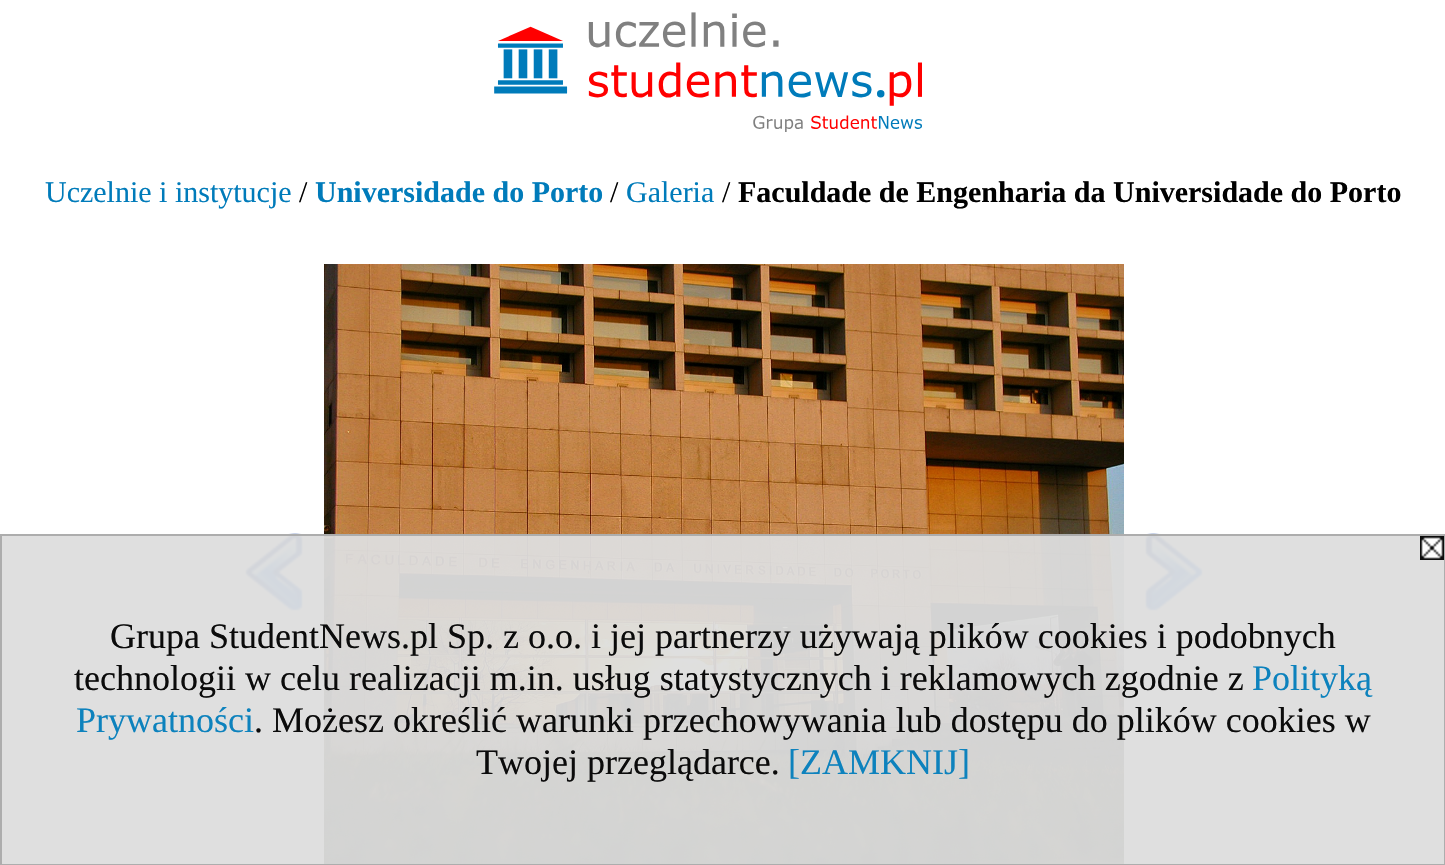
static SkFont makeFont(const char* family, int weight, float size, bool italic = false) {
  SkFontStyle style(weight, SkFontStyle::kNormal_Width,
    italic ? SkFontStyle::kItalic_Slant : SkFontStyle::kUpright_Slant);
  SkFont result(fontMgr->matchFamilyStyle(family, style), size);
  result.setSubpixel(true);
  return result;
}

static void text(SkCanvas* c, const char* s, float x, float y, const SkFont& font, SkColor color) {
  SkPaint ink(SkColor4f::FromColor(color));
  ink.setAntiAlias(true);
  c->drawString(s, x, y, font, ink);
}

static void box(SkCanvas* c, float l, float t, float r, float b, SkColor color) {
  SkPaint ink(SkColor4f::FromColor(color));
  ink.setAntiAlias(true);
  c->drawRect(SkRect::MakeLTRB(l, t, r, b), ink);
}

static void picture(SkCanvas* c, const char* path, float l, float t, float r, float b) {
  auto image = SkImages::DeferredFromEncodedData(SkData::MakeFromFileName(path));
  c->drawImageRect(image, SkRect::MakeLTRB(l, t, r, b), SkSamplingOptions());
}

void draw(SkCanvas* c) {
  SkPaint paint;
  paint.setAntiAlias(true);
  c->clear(0xffffffff);
  picture(c, "img_01.png", 494, 12, 922, 132);
  SkFont face1 = makeFont("Liberation Serif", 400, 30);
  text(c, "Uczelnie i instytucje", 45, 202, face1, 0xff007bba);
  text(c, "/", 299, 202, face1, 0xff000000);
  SkFont face2 = makeFont("Liberation Serif", 700, 30);
  text(c, "Universidade do Porto", 315, 202, face2, 0xff007bba);
  text(c, "/", 610, 202, face1, 0xff000000);
  text(c, "Galeria", 626, 202, face1, 0xff007bba);
  text(c, "/", 722, 202, face1, 0xff000000);
  text(c, "Faculdade de Engenharia da Universidade do Porto", 738, 202, face2, 0xff000000);
  picture(c, "img_02.png", 245, 533, 303, 611);
  picture(c, "img_03.png", 324, 264, 1124, 864);
  picture(c, "img_04.png", 1145, 533, 1203, 611);
  box(c, 0, 534, 1445, 865, 0xf2dddddd);
  paint.setStyle(SkPaint::kStroke_Style);
  paint.setStrokeWidth(2);
  paint.setColor(0xf2aaaaaa);
  c->drawRect(SkRect::MakeLTRB(1, 535, 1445, 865), paint);
  picture(c, "img_05.png", 1420, 536, 1444, 560);
  SkFont face3 = makeFont("Liberation Serif", 400, 36);
  text(c, "Grupa StudentNews.pl Sp. z o.o. i jej partnerzy używają plików cookies i podobnych", 110, 648, face3, 0xff0b0b0b);
  text(c, "technologii w celu realizacji m.in. usług statystycznych i reklamowych zgodnie z", 74, 690, face3, 0xff0b0b0b);
  text(c, "Polityką", 1252, 690, face3, 0xff0d82bd);
  text(c, "Prywatności", 76, 732, face3, 0xff0d82bd);
  text(c, ". Możesz określić warunki przechowywania lub dostępu do plików cookies w", 254, 732, face3, 0xff0b0b0b);
  text(c, "Twojej przeglądarce.", 476, 774, face3, 0xff0b0b0b);
  text(c, "[ZAMKNIJ]", 788, 774, face3, 0xff0d82bd);
}
